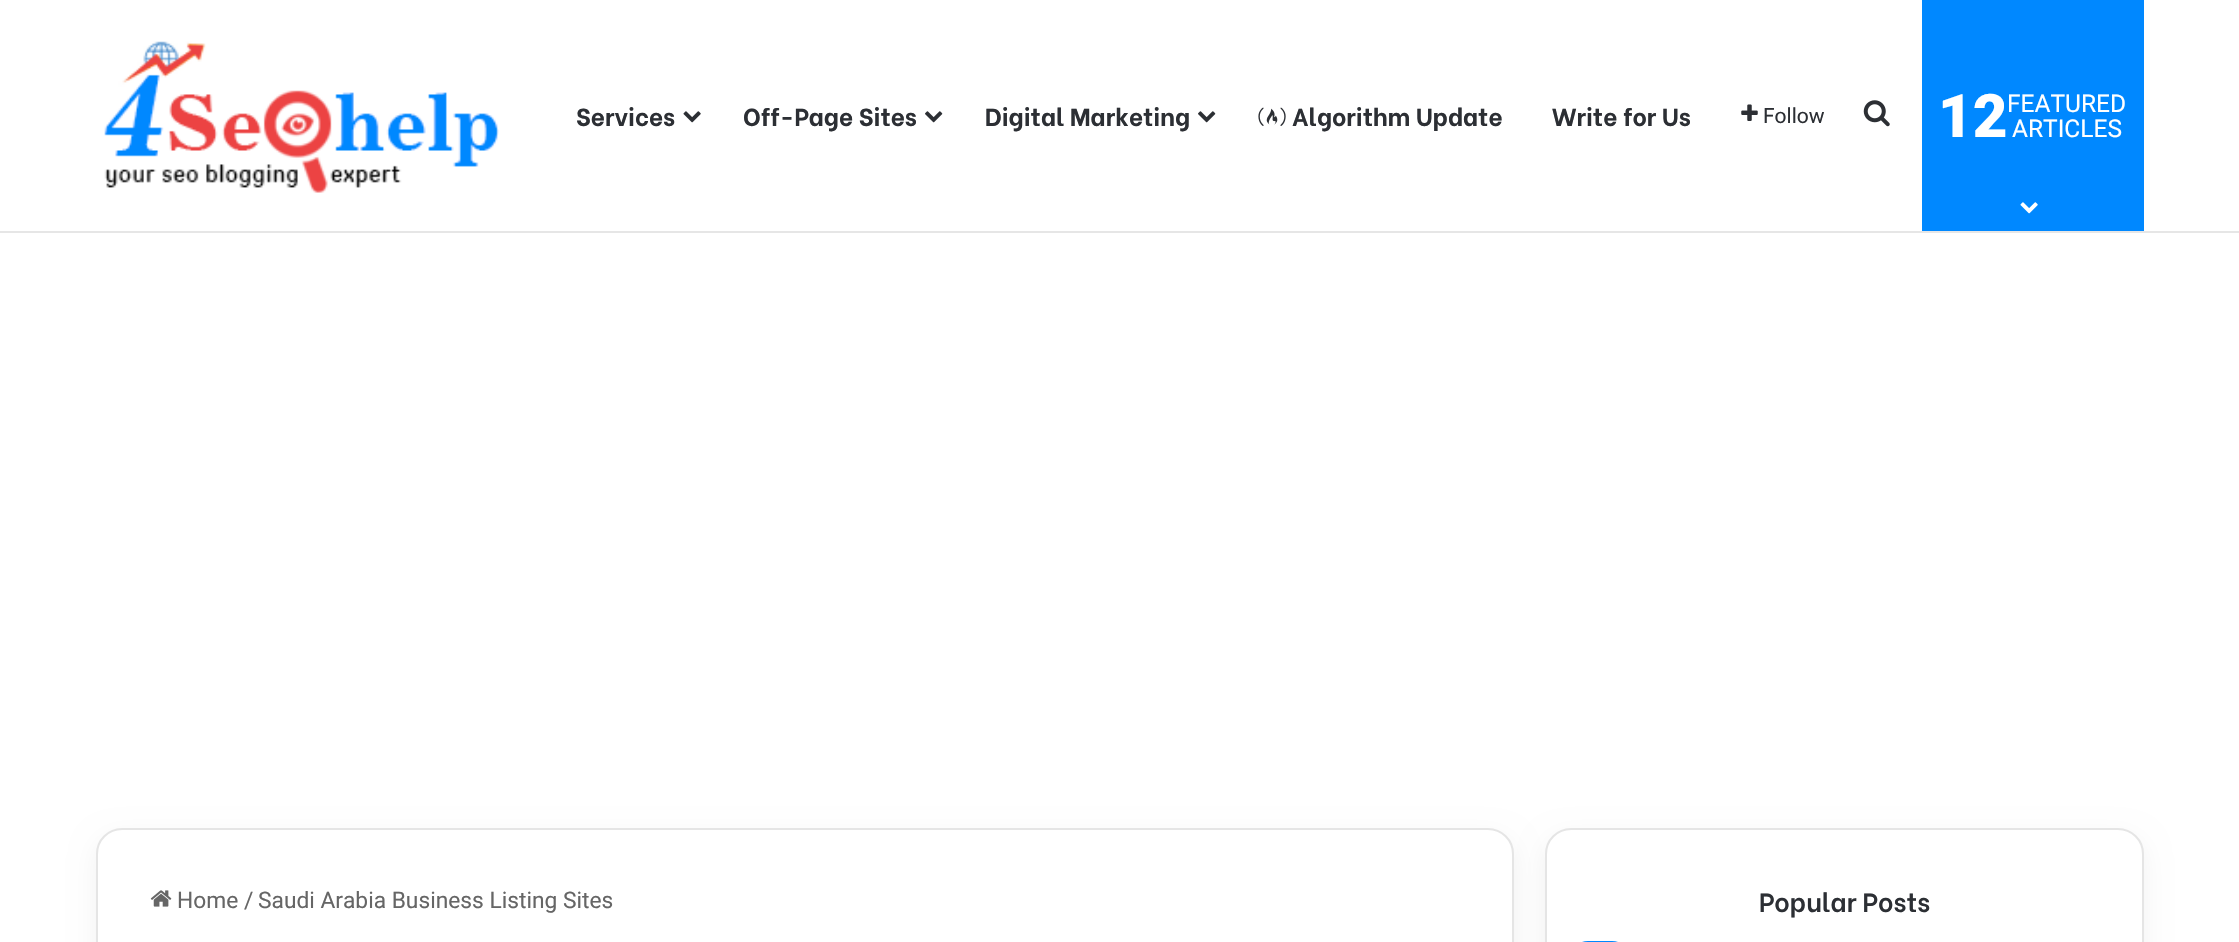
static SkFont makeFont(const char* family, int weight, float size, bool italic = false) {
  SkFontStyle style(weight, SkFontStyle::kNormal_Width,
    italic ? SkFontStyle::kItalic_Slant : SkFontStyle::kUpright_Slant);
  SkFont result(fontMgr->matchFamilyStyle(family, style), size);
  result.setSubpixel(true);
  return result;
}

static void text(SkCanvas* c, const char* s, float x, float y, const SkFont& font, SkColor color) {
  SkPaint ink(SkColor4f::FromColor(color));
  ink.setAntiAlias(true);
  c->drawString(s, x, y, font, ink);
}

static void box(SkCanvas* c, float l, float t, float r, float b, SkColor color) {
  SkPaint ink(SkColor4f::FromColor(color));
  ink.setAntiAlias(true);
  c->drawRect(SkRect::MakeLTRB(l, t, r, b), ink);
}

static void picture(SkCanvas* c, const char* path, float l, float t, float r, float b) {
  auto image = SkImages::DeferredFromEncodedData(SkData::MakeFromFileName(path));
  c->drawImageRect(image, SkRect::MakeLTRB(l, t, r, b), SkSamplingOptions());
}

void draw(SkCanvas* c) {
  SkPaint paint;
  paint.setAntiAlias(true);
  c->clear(0xffffffff);
  box(c, 0, 231, 2239, 233, 0xffe6e6e6);
  picture(c, "img_01.png", 104, 41, 499, 193);
  SkFont face1 = makeFont("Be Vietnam", 700, 24.5f);
  text(c, "Services", 576, 126, face1, 0xff2c2f34);
  picture(c, "img_02.png", 683, 111, 701, 123);
  text(c, "Off-Page Sites", 743, 126, face1, 0xff2c2f34);
  picture(c, "img_03.png", 925, 111, 943, 123);
  text(c, "Digital Marketing", 985, 126, face1, 0xff2c2f34);
  picture(c, "img_03.png", 1198, 111, 1216, 123);
  picture(c, "img_04.png", 1258, 107, 1286, 126);
  text(c, "Algorithm Update", 1292, 126, face1, 0xff2c2f34);
  text(c, "Write for Us", 1552, 126, face1, 0xff2c2f34);
  picture(c, "img_05.png", 1741, 104, 1758, 121);
  SkFont face2 = makeFont("Roboto", 400, 21);
  text(c, "Follow", 1763, 123, face2, 0xff2c2f34);
  picture(c, "img_06.png", 1863, 100, 1890, 127);
  box(c, 1922, 0, 2144, 231, 0xff0088ff);
  SkFont face3 = makeFont("Roboto", 900, 60);
  text(c, "12", 1938, 137, face3, 0xffffffff);
  SkFont face4 = makeFont("Roboto", 400, 24.5f);
  text(c, "FEATURED", 2007, 112, face4, 0xffffffff);
  text(c, "ARTICLES", 2012, 137, face4, 0xffffffff);
  picture(c, "img_07.png", 2020, 202, 2038, 214);
  paint.setColor(0x0d000000);
  paint.setMaskFilter(SkMaskFilter::MakeBlur(kNormal_SkBlurStyle, 13));
  c->drawRoundRect(SkRect::MakeLTRB(96, 837, 1514, 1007), 26, 26, paint);
  paint.setMaskFilter(nullptr);
  paint.setColor(0xffffffff);
  c->drawRoundRect(SkRect::MakeLTRB(97, 829, 1513, 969), 25, 25, paint);
  paint.setStyle(SkPaint::kStroke_Style);
  paint.setStrokeWidth(2);
  paint.setColor(0xffe5e5e5);
  c->drawRoundRect(SkRect::MakeLTRB(97, 829, 1513, 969), 25, 25, paint);
  picture(c, "img_08.png", 150, 890, 172, 907);
  SkFont face5 = makeFont("Roboto", 400, 22.75f);
  text(c, "Home", 177, 908, face5, 0xff666666);
  text(c, "/", 244, 908, face5, 0xff666666);
  text(c, "Saudi Arabia Business Listing Sites", 258, 908, face5, 0xff666666);
  paint.setStyle(SkPaint::kFill_Style);
  paint.setColor(0x0d000000);
  paint.setMaskFilter(SkMaskFilter::MakeBlur(kNormal_SkBlurStyle, 13));
  c->drawRoundRect(SkRect::MakeLTRB(1545, 837, 2144, 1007), 26, 26, paint);
  paint.setMaskFilter(nullptr);
  paint.setColor(0xffffffff);
  c->drawRoundRect(SkRect::MakeLTRB(1546, 829, 2143, 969), 25, 25, paint);
  paint.setStyle(SkPaint::kStroke_Style);
  paint.setColor(0xffe5e5e5);
  c->drawRoundRect(SkRect::MakeLTRB(1546, 829, 2143, 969), 25, 25, paint);
  SkFont face6 = makeFont("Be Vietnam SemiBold", 600, 26.25f);
  text(c, "Popular Posts", 1759, 912, face6, 0xff2c2f34);
  paint.setStyle(SkPaint::kFill_Style);
  paint.setColor(0xff0088ff);
  c->drawRoundRect(SkRect::MakeLTRB(1567.5f, 938.5f, 1632.5f, 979.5f), 32.5f, 32.5f, paint);
  paint.setStyle(SkPaint::kStroke_Style);
  paint.setStrokeWidth(5);
  paint.setColor(0xffffffff);
  c->drawRoundRect(SkRect::MakeLTRB(1567.5f, 938.5f, 1632.5f, 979.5f), 32.5f, 32.5f, paint);
}
